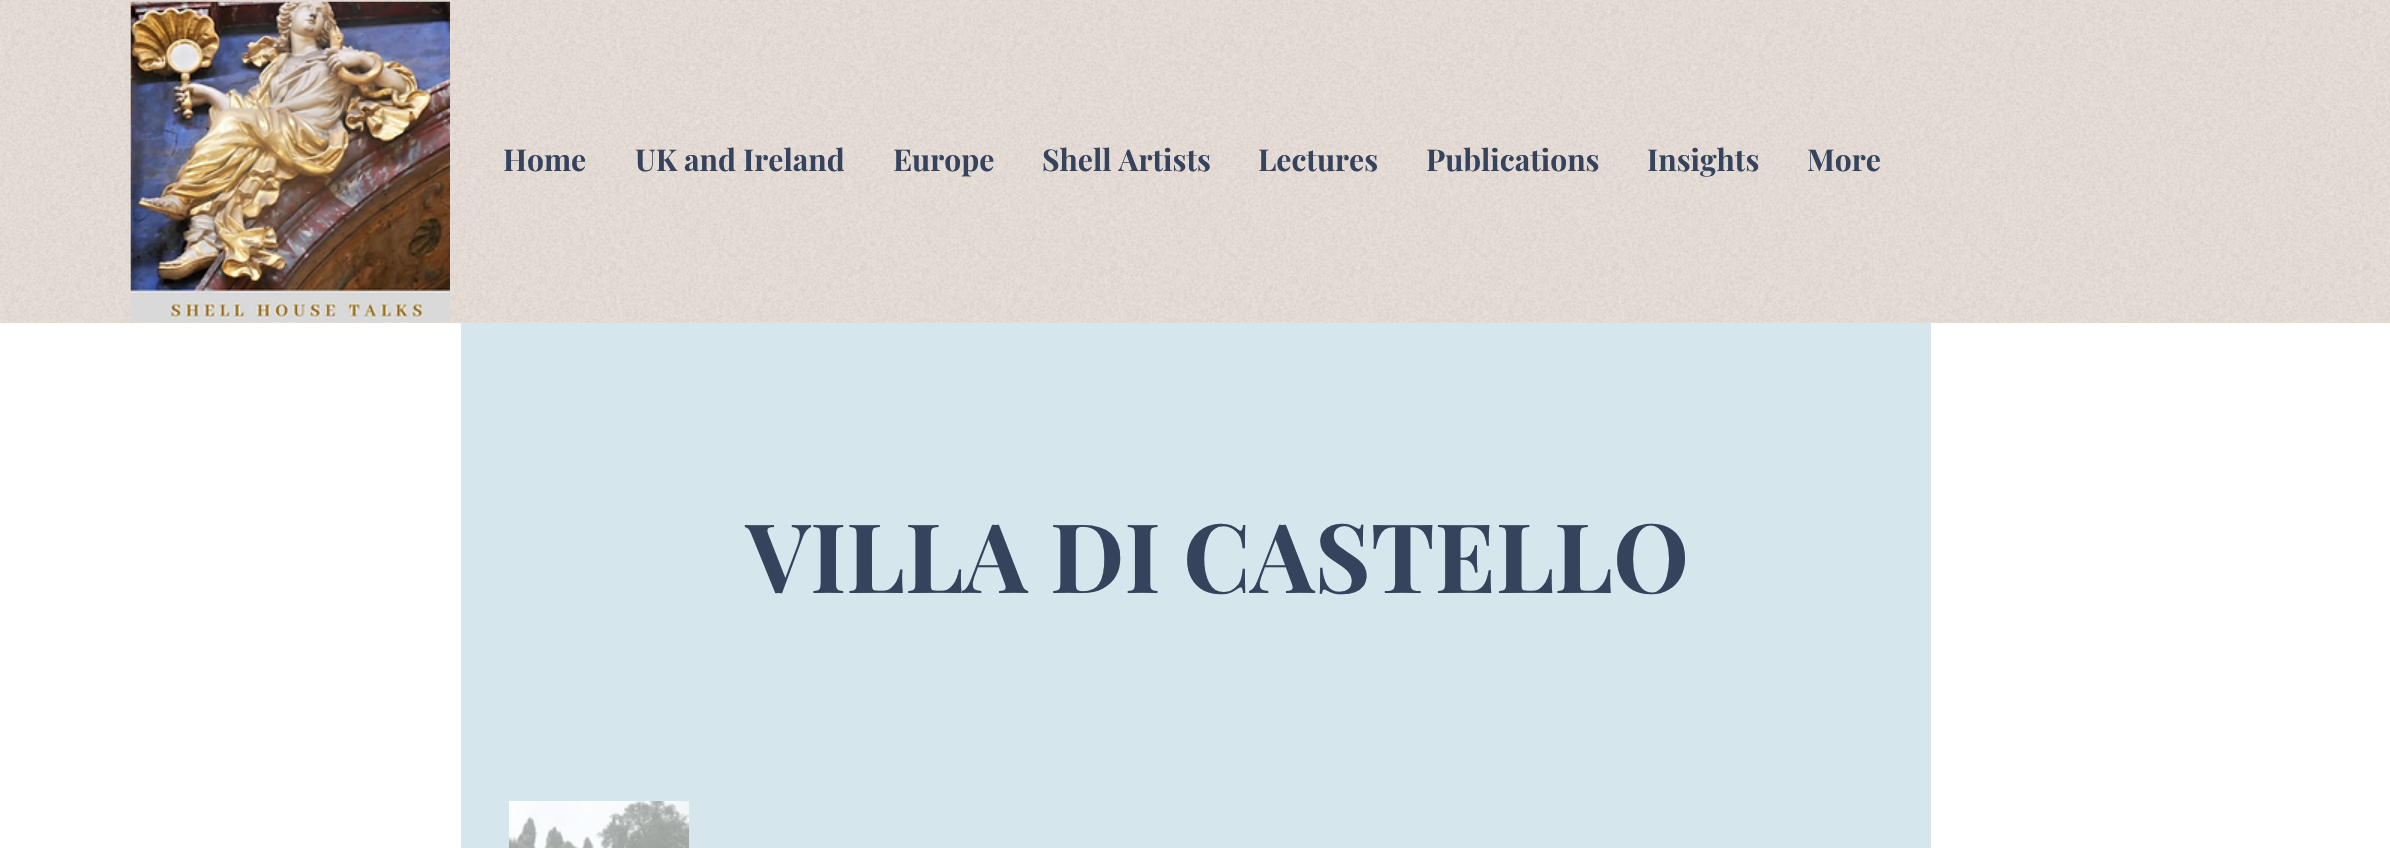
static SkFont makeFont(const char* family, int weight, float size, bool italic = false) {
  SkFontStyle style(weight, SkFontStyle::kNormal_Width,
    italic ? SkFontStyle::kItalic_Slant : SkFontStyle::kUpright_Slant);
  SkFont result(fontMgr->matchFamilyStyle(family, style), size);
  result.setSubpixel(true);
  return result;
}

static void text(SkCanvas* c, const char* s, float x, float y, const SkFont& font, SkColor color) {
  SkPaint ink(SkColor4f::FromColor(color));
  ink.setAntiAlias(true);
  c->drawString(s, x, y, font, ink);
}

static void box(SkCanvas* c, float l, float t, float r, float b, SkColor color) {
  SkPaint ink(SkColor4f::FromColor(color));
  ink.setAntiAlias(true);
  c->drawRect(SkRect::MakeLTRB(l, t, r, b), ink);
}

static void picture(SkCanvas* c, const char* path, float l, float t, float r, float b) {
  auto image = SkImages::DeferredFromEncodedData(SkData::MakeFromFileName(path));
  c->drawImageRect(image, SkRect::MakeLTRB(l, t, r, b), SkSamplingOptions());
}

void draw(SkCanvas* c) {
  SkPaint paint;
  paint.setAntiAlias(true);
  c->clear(0xffffffff);
  box(c, 0, 0, 2390, 323, 0xffeae0da);
  picture(c, "img_01.png", 0, 0, 2390, 323);
  picture(c, "img_02.png", 130, 1, 450, 322);
  SkFont face1 = makeFont("Playfair Display", 700, 30);
  text(c, "Home", 503, 171, face1, 0xff35435d);
  text(c, "UK and Ireland", 635, 171, face1, 0xff35435d);
  text(c, "Europe", 893, 171, face1, 0xff35435d);
  text(c, "Shell Artists", 1042, 171, face1, 0xff35435d);
  text(c, "Lectures", 1258, 171, face1, 0xff35435d);
  text(c, "Publications", 1426, 171, face1, 0xff35435d);
  text(c, "Insights", 1647, 171, face1, 0xff35435d);
  text(c, "More", 1807, 171, face1, 0xff35435d);
  box(c, 461, 323, 1931, 848, 0xffd6e6ed);
  SkFont face2 = makeFont("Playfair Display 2", 700, 96);
  text(c, "VILLA DI CASTELLO", 746, 593, face2, 0xff35435d);
  picture(c, "img_03.png", 509, 801, 689, 848);
}
